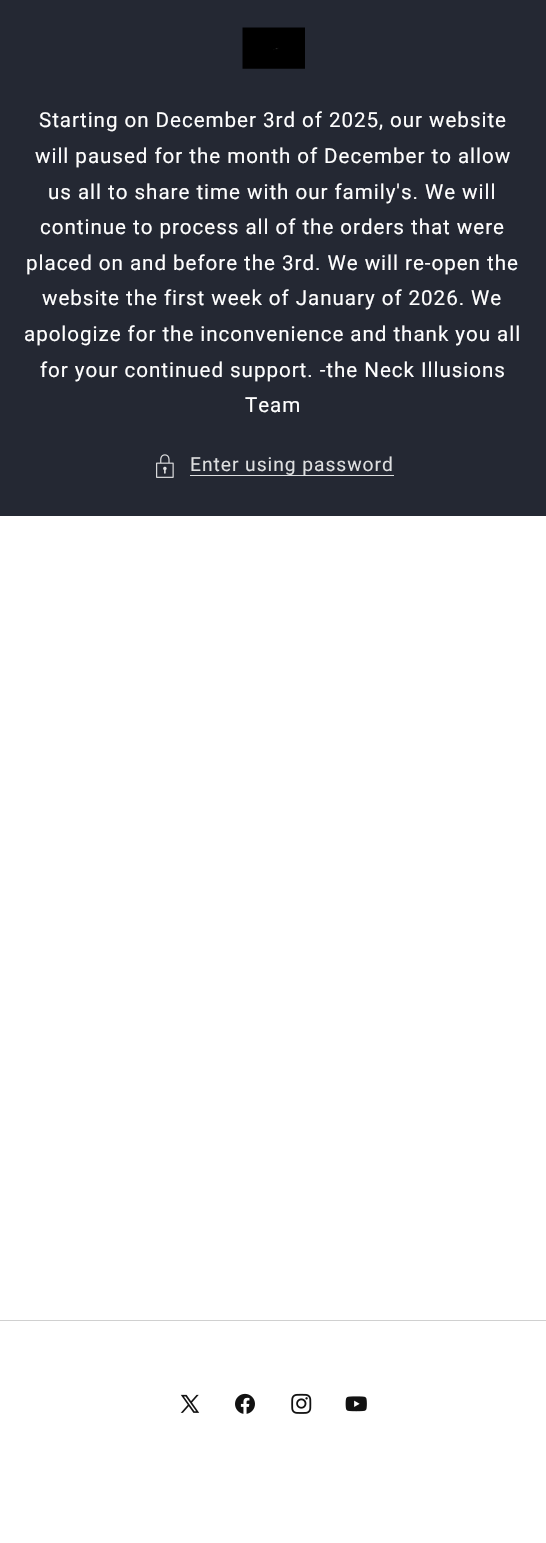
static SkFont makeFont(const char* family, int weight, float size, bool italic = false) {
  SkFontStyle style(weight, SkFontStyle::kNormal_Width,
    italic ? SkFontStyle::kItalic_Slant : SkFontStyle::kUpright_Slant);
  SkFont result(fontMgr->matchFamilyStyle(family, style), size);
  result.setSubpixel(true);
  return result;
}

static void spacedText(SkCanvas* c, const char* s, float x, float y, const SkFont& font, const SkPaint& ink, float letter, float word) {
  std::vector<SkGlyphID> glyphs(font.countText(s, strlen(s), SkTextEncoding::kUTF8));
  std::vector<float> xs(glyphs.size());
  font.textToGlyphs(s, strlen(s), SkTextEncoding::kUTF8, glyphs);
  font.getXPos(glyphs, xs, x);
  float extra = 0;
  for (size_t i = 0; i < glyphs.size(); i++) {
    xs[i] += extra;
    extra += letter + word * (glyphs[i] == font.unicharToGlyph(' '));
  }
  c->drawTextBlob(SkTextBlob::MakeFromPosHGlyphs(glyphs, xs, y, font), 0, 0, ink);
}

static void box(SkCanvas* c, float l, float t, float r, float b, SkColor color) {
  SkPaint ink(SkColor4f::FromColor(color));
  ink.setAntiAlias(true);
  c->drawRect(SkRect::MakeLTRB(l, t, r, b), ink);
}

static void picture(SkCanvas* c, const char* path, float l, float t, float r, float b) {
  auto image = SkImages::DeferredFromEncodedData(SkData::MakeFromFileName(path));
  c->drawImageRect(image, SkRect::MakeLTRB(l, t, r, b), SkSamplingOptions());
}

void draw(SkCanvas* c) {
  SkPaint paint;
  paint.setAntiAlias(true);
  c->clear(0xffffffff);
  box(c, 0, 0, 546, 516, 0xff242833);
  picture(c, "img_01.png", 242, 27, 305, 69);
  SkFont face1 = makeFont("Roboto", 400, 20.6f);
  paint.setColor(0xffffffff);
  spacedText(c, "Starting on December 3rd of 2025, our website", 39, 127, face1, paint, 0.95f, 0);
  spacedText(c, "will paused for the month of December to allow", 35, 163, face1, paint, 0.95f, 0);
  spacedText(c, "us all to share time with our family's. We will", 48, 199, face1, paint, 0.95f, 0);
  spacedText(c, "continue to process all of the orders that were", 40, 234, face1, paint, 0.95f, 0);
  spacedText(c, "placed on and before the 3rd. We will re-open the", 26, 270, face1, paint, 0.95f, 0);
  spacedText(c, "website the first week of January of 2026. We", 42, 305, face1, paint, 0.95f, 0);
  spacedText(c, "apologize for the inconvenience and thank you all", 24, 341, face1, paint, 0.95f, 0);
  spacedText(c, "for your continued support. -the Neck Illusions", 40, 377, face1, paint, 0.95f, 0);
  spacedText(c, "Team", 245, 412, face1, paint, 0.95f, 0);
  picture(c, "img_02.png", 156, 454, 174, 478);
  SkFont face2 = makeFont("Roboto", 400, 19.25f);
  paint.setColor(0xffdedfe0);
  spacedText(c, "Enter using password", 190, 471, face2, paint, 0.95f, 0);
  box(c, 190, 475, 394, 476, 0xffdedfe0);
  box(c, 0, 1320, 546, 1321, 0xffd0d0d0);
  picture(c, "img_03.png", 180, 1394, 200, 1413);
  picture(c, "img_04.png", 235, 1393, 255, 1414);
  picture(c, "img_05.png", 291, 1393, 312, 1414);
  picture(c, "img_06.png", 345, 1396, 367, 1412);
}
